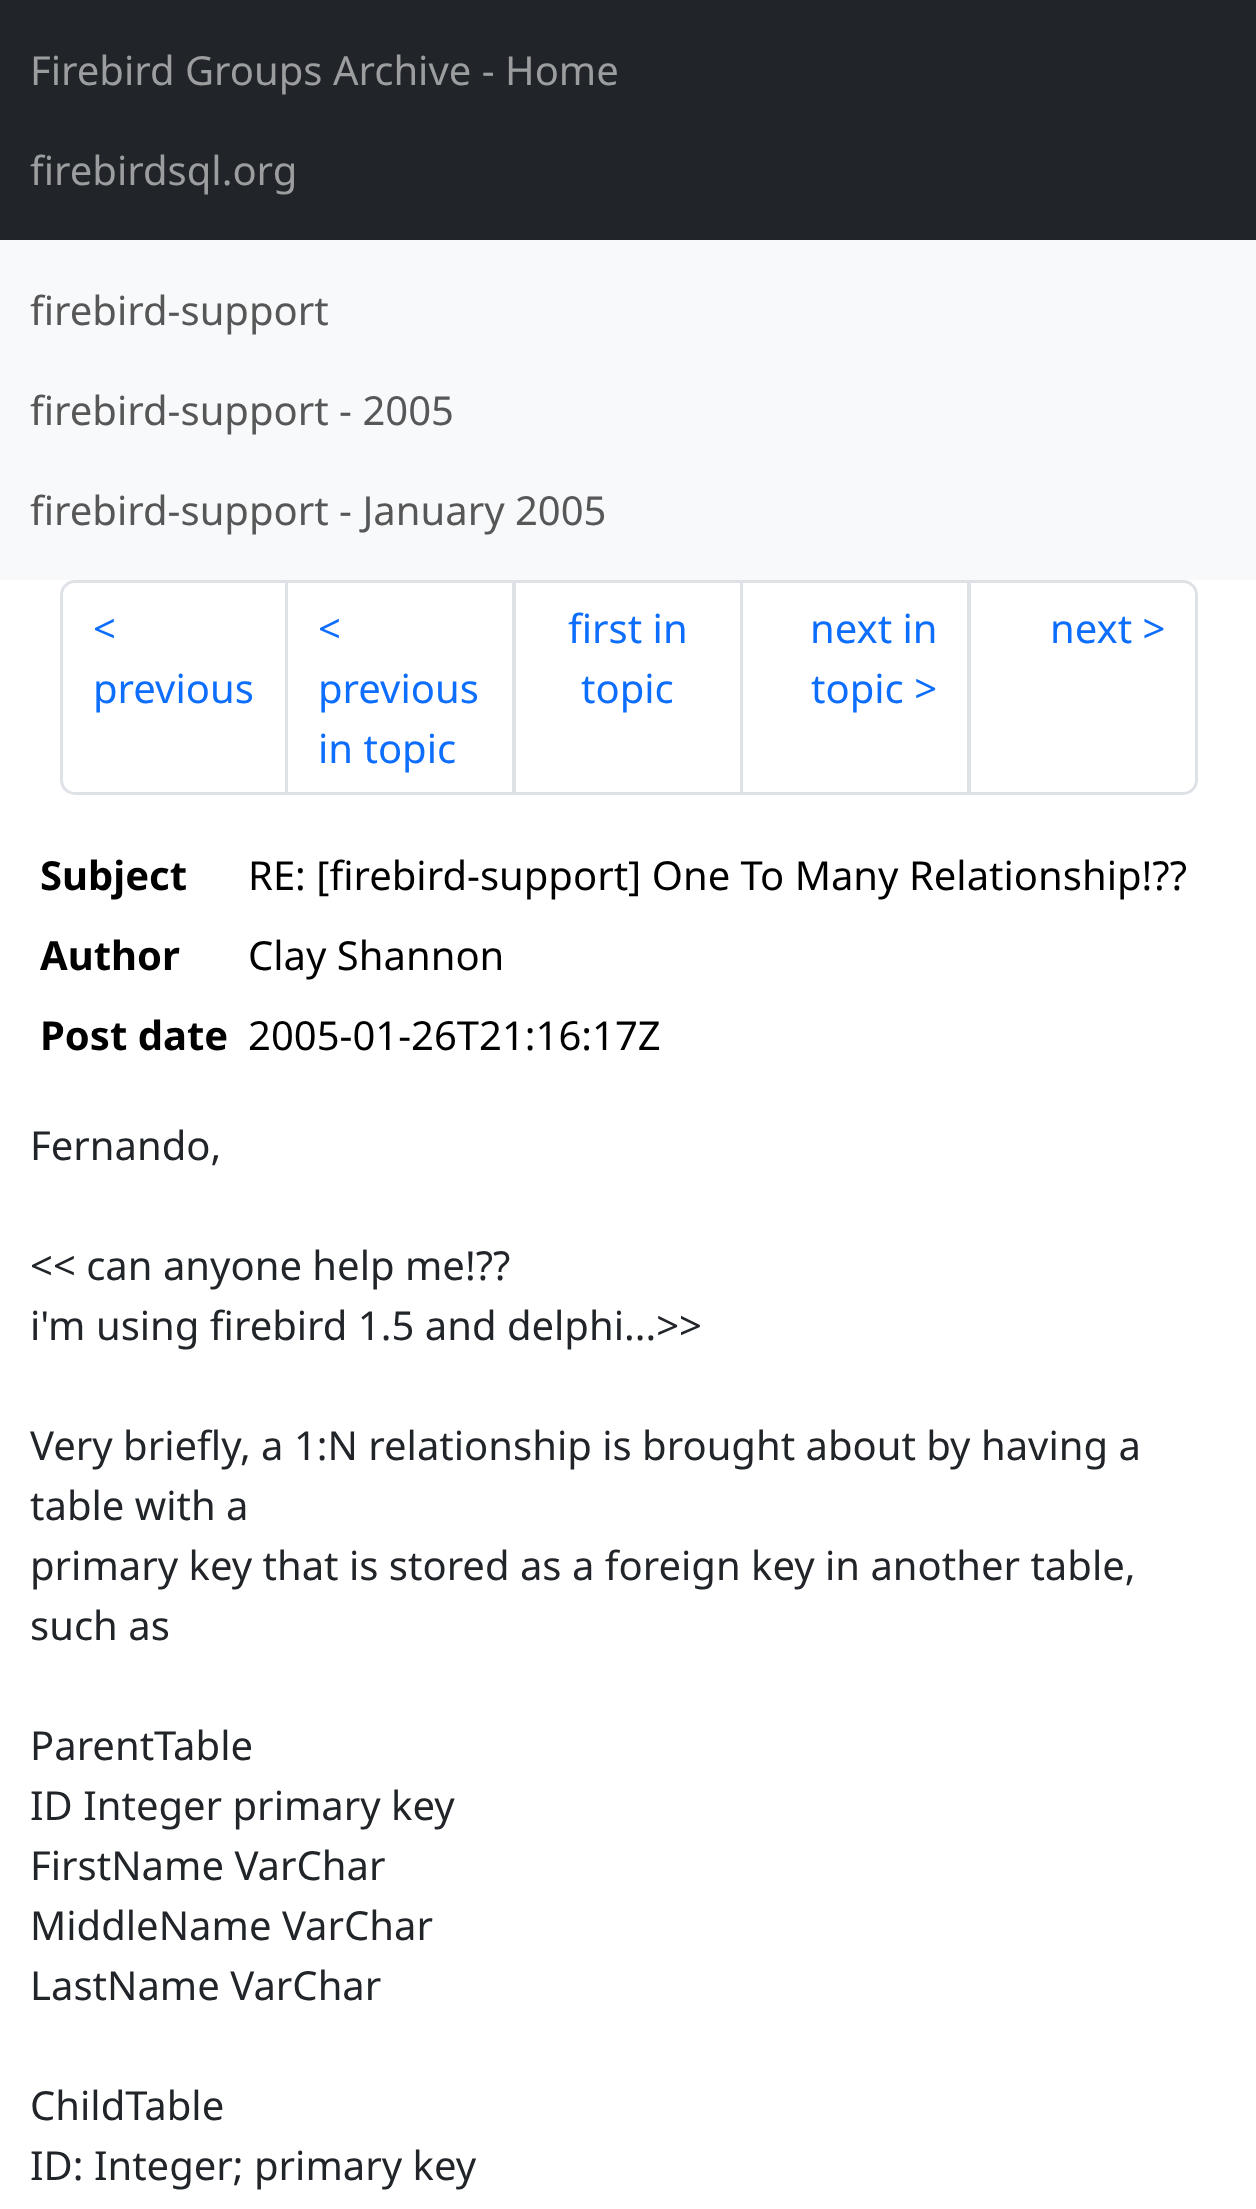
<svg xmlns="http://www.w3.org/2000/svg" width="1256" height="2209">
<style>
.a{font:40px Noto Sans;fill:#9b9d9f}
.b{font:40px Noto Sans;fill:#575758}
.c{font:40px Noto Sans;fill:#0d6efd}
.d{font:bold 40px Noto Sans;fill:#000}
.e{font:40px Noto Sans;fill:#000}
.f{font:40px Noto Sans;fill:#212529}
</style>
<rect width="100%" height="100%" fill="#fff"/>
<path fill="#212529" d="M0 0h1256v240H0z"/>
<path fill="#f8f9fa" d="M0 240h1256v340H0z"/>
<path fill="none" stroke="#dee2e6" stroke-width="3" d="M75 581.5h211.5v212h-211.5c-7.5 0-13.5-6-13.5-13.5v-185c0-7.5 6-13.5 13.5-13.5z"/>
<path fill="none" stroke="#dee2e6" stroke-width="3" d="M286.5 581.5h227v212H286.5z"/>
<path fill="none" stroke="#dee2e6" stroke-width="3" d="M514.5 581.5h227v212H514.5z"/>
<path fill="none" stroke="#dee2e6" stroke-width="3" d="M741.5 581.5h227v212H741.5z"/>
<path fill="#fff" stroke="#dee2e6" stroke-width="3" d="M969.5 581.5h213.5c7.5 0 13.5 6 13.5 13.5v185c0 7.5-6 13.5-13.5 13.5h-213.5z"/>
<text class="a" x="30" y="85">Firebird Groups Archive - Home</text>
<text class="a" x="30" y="185">firebirdsql.org</text>
<text class="b" x="30" y="325">firebird-support</text>
<text class="b" x="30" y="425">firebird-support - 2005</text>
<text class="b" x="30" y="525">firebird-support - January 2005</text>
<text class="c" x="93" y="643">&lt;</text>
<text class="c" x="93" y="703">previous</text>
<text class="c" x="318" y="643">&lt;</text>
<text class="c" x="318" y="703">previous</text>
<text class="c" x="318" y="763">in topic</text>
<text class="c" x="568" y="643">first in</text>
<text class="c" x="581" y="703">topic</text>
<text class="c" x="810" y="643">next in</text>
<text class="c" x="811" y="703">topic &gt;</text>
<text class="c" x="1050" y="643">next &gt;</text>
<text class="d" x="40" y="890">Subject</text>
<text class="e" x="248" y="890">RE: [firebird-support] One To Many Relationship!??</text>
<text class="d" x="40" y="970">Author</text>
<text class="e" x="248" y="970">Clay Shannon</text>
<text class="d" x="40" y="1050">Post date</text>
<text class="e" x="248" y="1050">2005-01-26T21:16:17Z</text>
<text class="f" x="30" y="1160">Fernando,</text>
<text class="f" x="30" y="1280">&lt;&lt; can anyone help me!??</text>
<text class="f" x="30" y="1340">i'm using firebird 1.5 and delphi...&gt;&gt;</text>
<text class="f" x="30" y="1460">Very briefly, a 1:N relationship is brought about by having a</text>
<text class="f" x="30" y="1520">table with a</text>
<text class="f" x="30" y="1580">primary key that is stored as a foreign key in another table,</text>
<text class="f" x="30" y="1640">such as</text>
<text class="f" x="30" y="1760">ParentTable</text>
<text class="f" x="30" y="1820">ID Integer primary key</text>
<text class="f" x="30" y="1880">FirstName VarChar</text>
<text class="f" x="30" y="1940">MiddleName VarChar</text>
<text class="f" x="30" y="2000">LastName VarChar</text>
<text class="f" x="30" y="2120">ChildTable</text>
<text class="f" x="30" y="2180">ID: Integer; primary key</text>
</svg>
